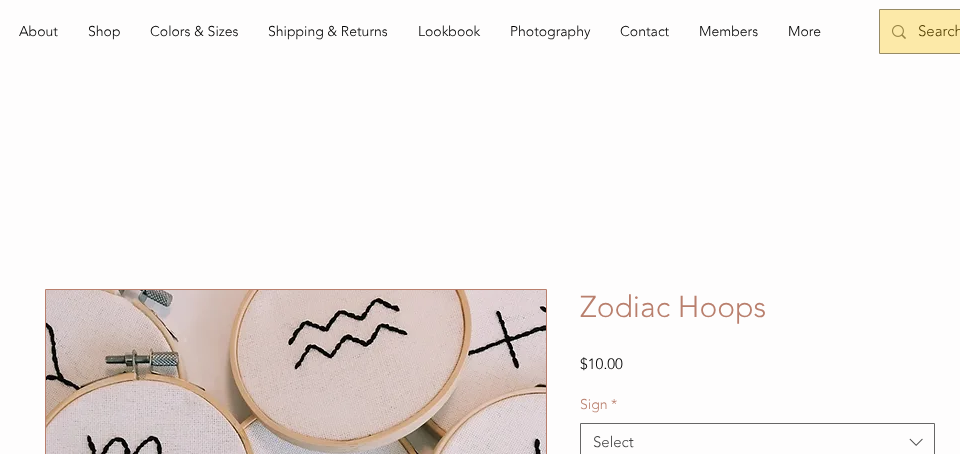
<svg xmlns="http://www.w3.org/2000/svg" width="960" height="454">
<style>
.a{font:300 14px 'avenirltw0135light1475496';fill:#000}
.b{font:300 15px 'avenirltw0135light1475496';fill:#523f00}
.c{font:300 30px 'avenirltw0135light1475496';fill:#b97f6d}
.d{font:300 15px 'avenirltw0135light1475496';fill:#000}
.e{font:300 14px 'avenirltw0135light1475496';fill:#b97f6d}
.f{font:300 15px 'avenirltw0135light1475496';fill:#444}
</style>
<rect width="100%" height="100%" fill="#fefdfd"/>
<path fill="none" stroke="#978b65" d="M879.5 9.5h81v44H879.5z"/>
<path fill="#fce9a8" d="M880 10h80v43H880z"/>
<image href="1.png" x="892" y="25" width="14" height="14"/>
<path fill="none" stroke="#b97f6d" d="M45.5 289.5h501v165H45.5z"/>
<image href="2.png" x="46" y="290" width="500" height="164"/>
<path fill="none" stroke="#666" d="M580.5 423.5h354v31H580.5z"/>
<image href="3.png" x="909" y="438" width="14" height="8"/>
<text class="a" x="19" y="36">About</text>
<text class="a" x="88" y="36">Shop</text>
<text class="a" x="150" y="36">Colors &amp; Sizes</text>
<text class="a" x="268" y="36">Shipping &amp; Returns</text>
<text class="a" x="418" y="36">Lookbook</text>
<text class="a" x="510" y="36">Photography</text>
<text class="a" x="620" y="36">Contact</text>
<text class="a" x="699" y="36">Members</text>
<text class="a" x="788" y="36">More</text>
<text class="b" x="918" y="36">Search</text>
<text class="c" x="580" y="317">Zodiac Hoops</text>
<text class="d" x="580" y="369">$10.00</text>
<text class="e" x="580" y="409">Sign</text>
<text class="e" x="611" y="409">*</text>
<text class="f" x="593" y="447">Select</text>
</svg>
